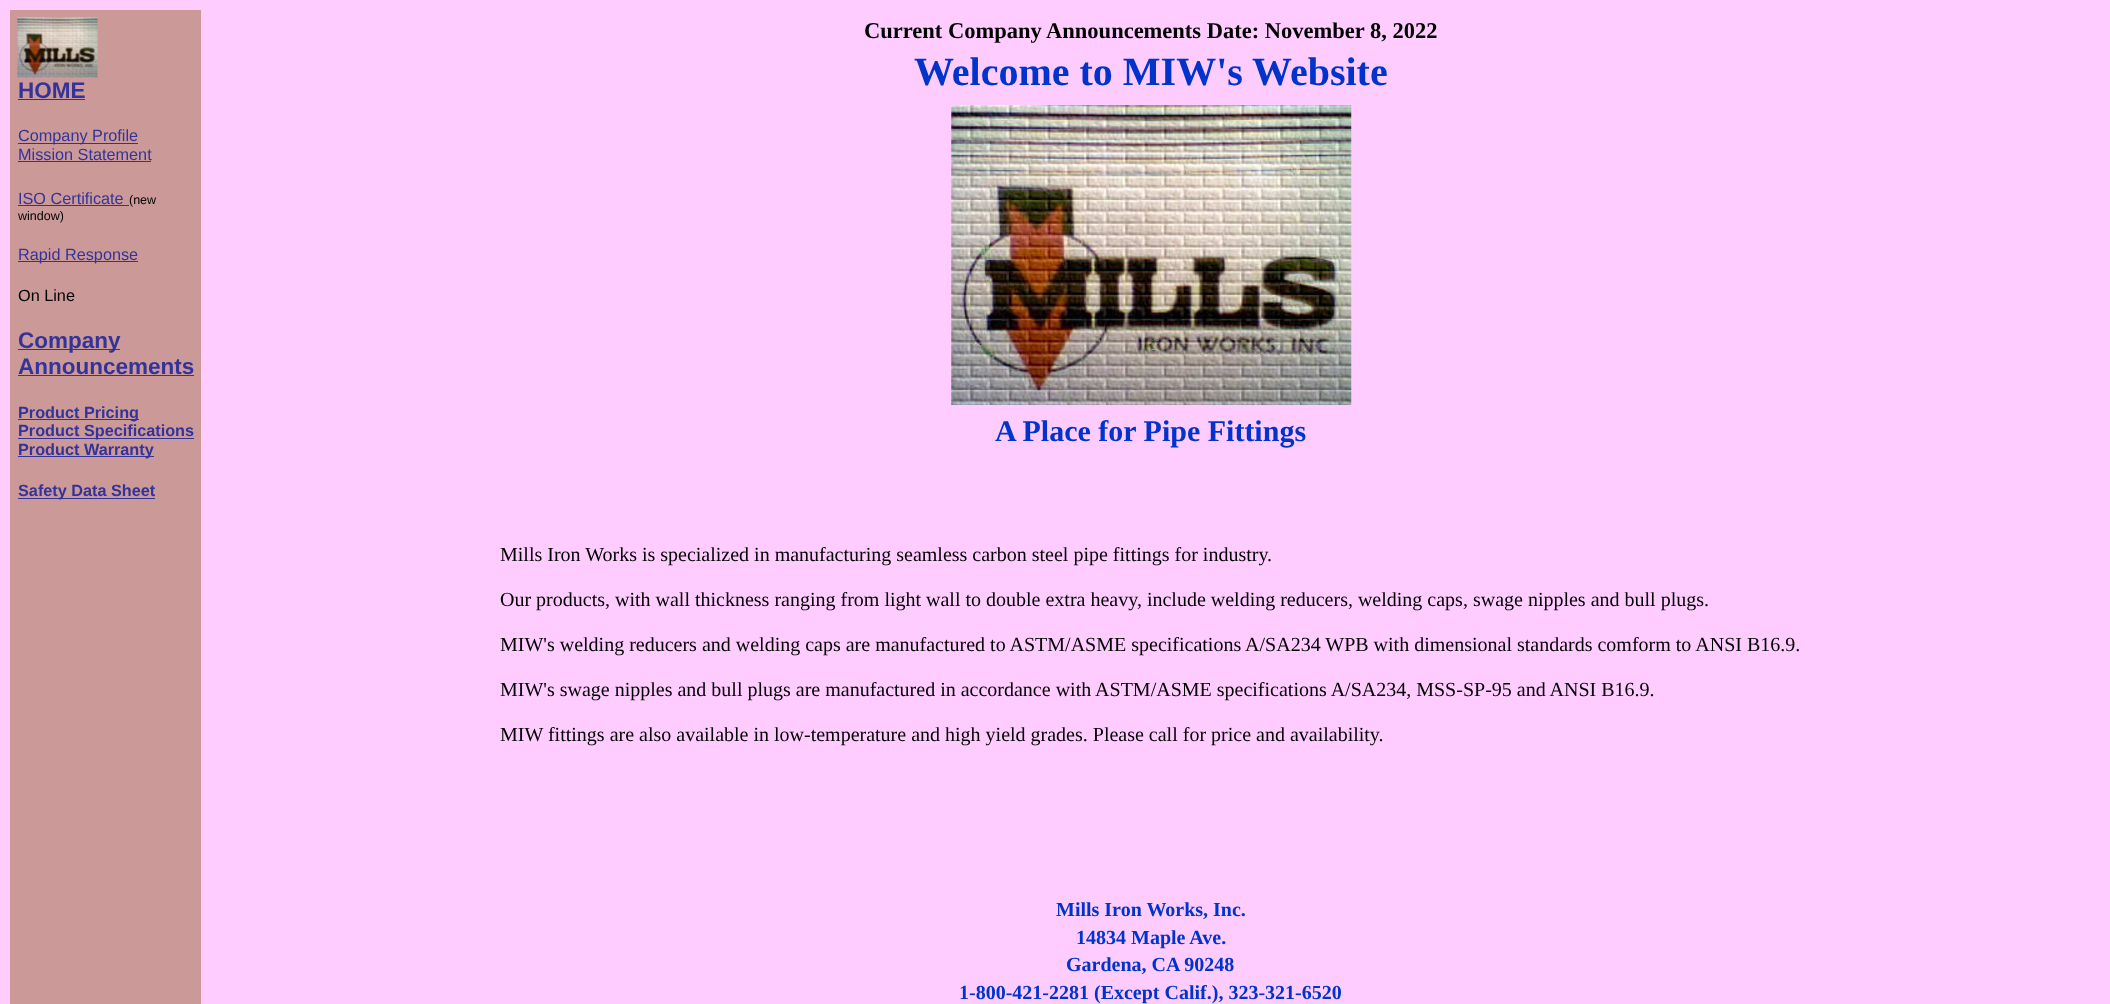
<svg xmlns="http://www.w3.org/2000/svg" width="2110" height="1004">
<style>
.a{font:bold 22.5px Liberation Sans;fill:#339}
.b{font:16.25px Liberation Sans;fill:#339}
.c{font:12.5px Liberation Sans;fill:#000}
.d{font:16.25px Liberation Sans;fill:#000}
.e{font:bold 16.25px Liberation Sans;fill:#339}
.f{font:bold 22.5px Liberation Serif;fill:#000}
.g{font:bold 40px Liberation Serif;fill:#03c}
.h{font:bold 30px Liberation Serif;fill:#03c}
.i{font:20px Liberation Serif;fill:#000}
.j{font:bold 20px Liberation Serif;fill:#03c}
</style>
<rect width="100%" height="100%" fill="#fcf"/>
<path fill="#c99" d="M10 10h191v994H10z"/>
<image href="1.png" x="17" y="17" width="81" height="61"/>
<path fill="#339" d="M18 99h67v1H18z"/>
<path fill="#339" d="M18 143h120v1H18z"/>
<path fill="#339" d="M18 161h133v1H18z"/>
<path fill="#339" d="M18 205h111v1H18z"/>
<path fill="#339" d="M18 261h120v1H18z"/>
<path fill="#339" d="M18 349h102v1H18z"/>
<path fill="#339" d="M18 375h176v1H18z"/>
<path fill="#339" d="M18 419h121v1H18z"/>
<path fill="#339" d="M18 438h176v1H18z"/>
<path fill="#339" d="M18 456h136v1H18z"/>
<path fill="#339" d="M18 498h137v1H18z"/>
<image href="2.png" x="951" y="105" width="401" height="300"/>
<text class="a" x="18" y="98">HOME</text>
<text class="b" x="18" y="141">Company Profile</text>
<text class="b" x="18" y="160">Mission Statement</text>
<text class="b" x="18" y="204">ISO Certificate</text>
<text class="c" x="129" y="204">(new</text>
<text class="c" x="18" y="220">window)</text>
<text class="b" x="18" y="260">Rapid Response</text>
<text class="d" x="18" y="301">On Line</text>
<text class="a" x="18" y="348">Company</text>
<text class="a" x="18" y="374">Announcements</text>
<text class="e" x="18" y="418">Product Pricing</text>
<text class="e" x="18" y="436">Product Specifications</text>
<text class="e" x="18" y="455">Product Warranty</text>
<text class="e" x="18" y="496">Safety Data Sheet</text>
<text class="f" x="864" y="38">Current Company Announcements Date: November 8, 2022</text>
<text class="g" x="914" y="85">Welcome to MIW's Website</text>
<text class="h" x="995" y="441">A Place for Pipe Fittings</text>
<text class="i" x="500" y="561">Mills Iron Works is specialized in manufacturing seamless carbon steel pipe fittings for industry.</text>
<text class="i" x="500" y="606">Our products, with wall thickness ranging from light wall to double extra heavy, include welding reducers, welding caps, swage nipples and bull plugs.</text>
<text class="i" x="500" y="651">MIW's welding reducers and welding caps are manufactured to ASTM/ASME specifications A/SA234 WPB with dimensional standards comform to ANSI B16.9.</text>
<text class="i" x="500" y="696">MIW's swage nipples and bull plugs are manufactured in accordance with ASTM/ASME specifications A/SA234, MSS-SP-95 and ANSI B16.9.</text>
<text class="i" x="500" y="741">MIW fittings are also available in low-temperature and high yield grades. Please call for price and availability.</text>
<text class="j" x="1056" y="916">Mills Iron Works, Inc.</text>
<text class="j" x="1076" y="944">14834 Maple Ave.</text>
<text class="j" x="1066" y="971">Gardena, CA 90248</text>
<text class="j" x="959" y="999">1-800-421-2281 (Except Calif.), 323-321-6520</text>
</svg>
